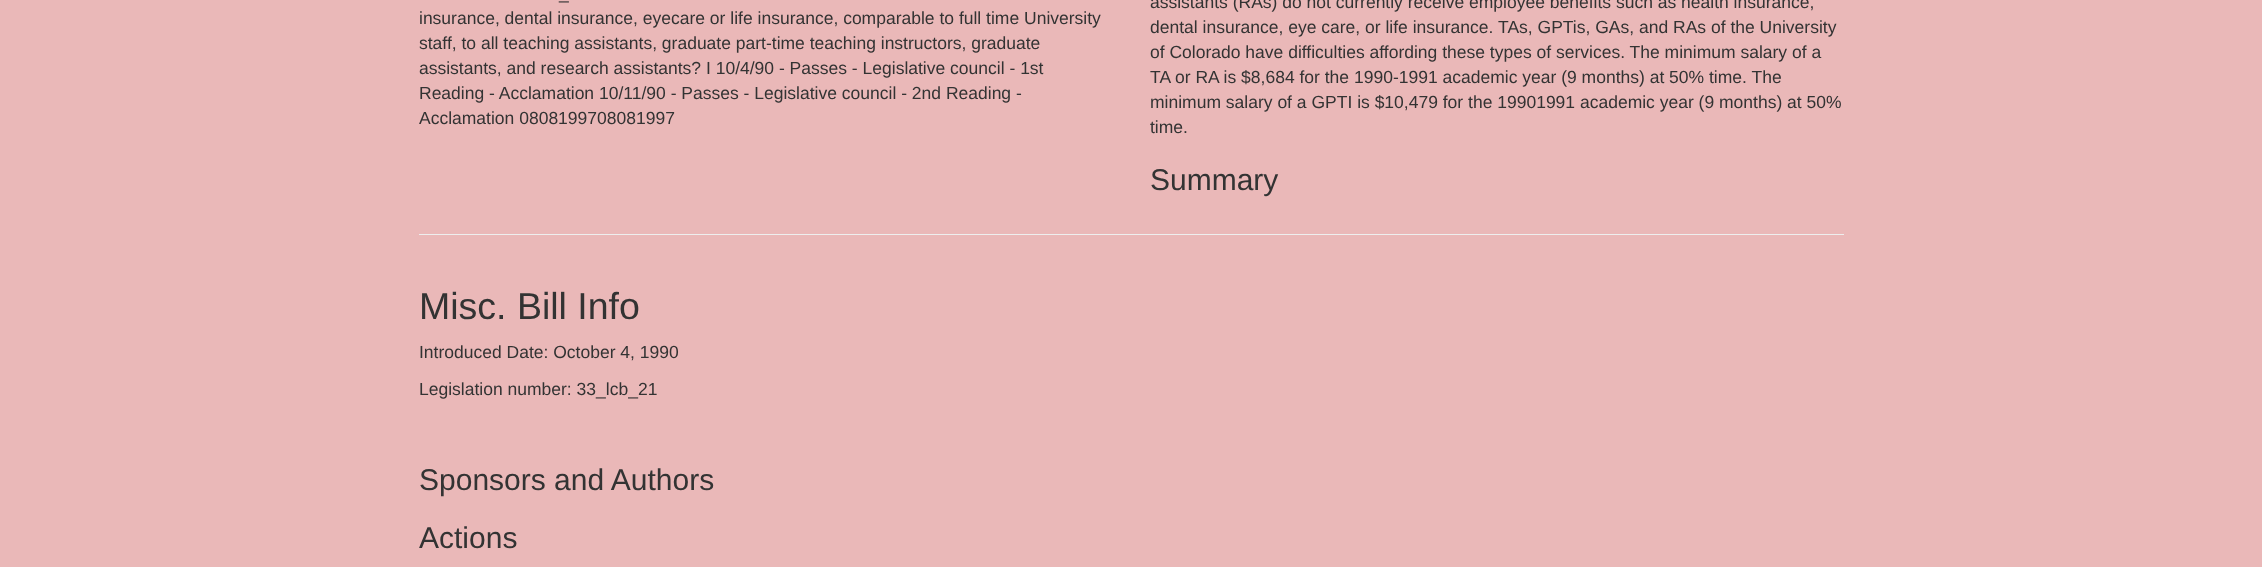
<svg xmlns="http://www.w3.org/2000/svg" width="2262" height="567">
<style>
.a{font:17.5px Liberation Sans;fill:#333}
.b{font:30px Liberation Sans;fill:#333}
.c{font:37.5px Liberation Sans;fill:#333}
</style>
<rect width="100%" height="100%" fill="#eab8b8"/>
<path fill="#eee" d="M419 234h1425v1H419z"/>
<text class="a" x="559" y="-1">_</text>
<text class="a" x="419" y="24">insurance, dental insurance, eyecare or life insurance, comparable to full time University</text>
<text class="a" x="419" y="49">staff, to all teaching assistants, graduate part-time teaching instructors, graduate</text>
<text class="a" x="419" y="74">assistants, and research assistants? I 10/4/90 - Passes - Legislative council - 1st</text>
<text class="a" x="419" y="99">Reading - Acclamation 10/11/90 - Passes - Legislative council - 2nd Reading -</text>
<text class="a" x="419" y="124">Acclamation 0808199708081997</text>
<text class="a" x="1150" y="8">assistants (RAs) do not currently receive employee benefits such as health insurance,</text>
<text class="a" x="1150" y="33">dental insurance, eye care, or life insurance.</text>
<text class="a" x="1498" y="33">TAs, GPTis, GAs, and RAs of the University</text>
<text class="a" x="1150" y="58">of Colorado have difficulties affording these types of services. The minimum salary of a</text>
<text class="a" x="1150" y="83">TA or RA is $8,684 for the 1990-1991 academic year (9 months) at 50% time. The</text>
<text class="a" x="1150" y="108">minimum salary of a GPTI is $10,479 for the 19901991 academic year (9 months) at 50%</text>
<text class="a" x="1150" y="133">time.</text>
<text class="b" x="1150" y="190">Summary</text>
<text class="c" x="419" y="319">Misc. Bill Info</text>
<text class="a" x="419" y="358">Introduced Date: October 4, 1990</text>
<text class="a" x="419" y="395">Legislation number: 33_lcb_21</text>
<text class="b" x="419" y="490">Sponsors and Authors</text>
<text class="b" x="419" y="548">Actions</text>
</svg>
